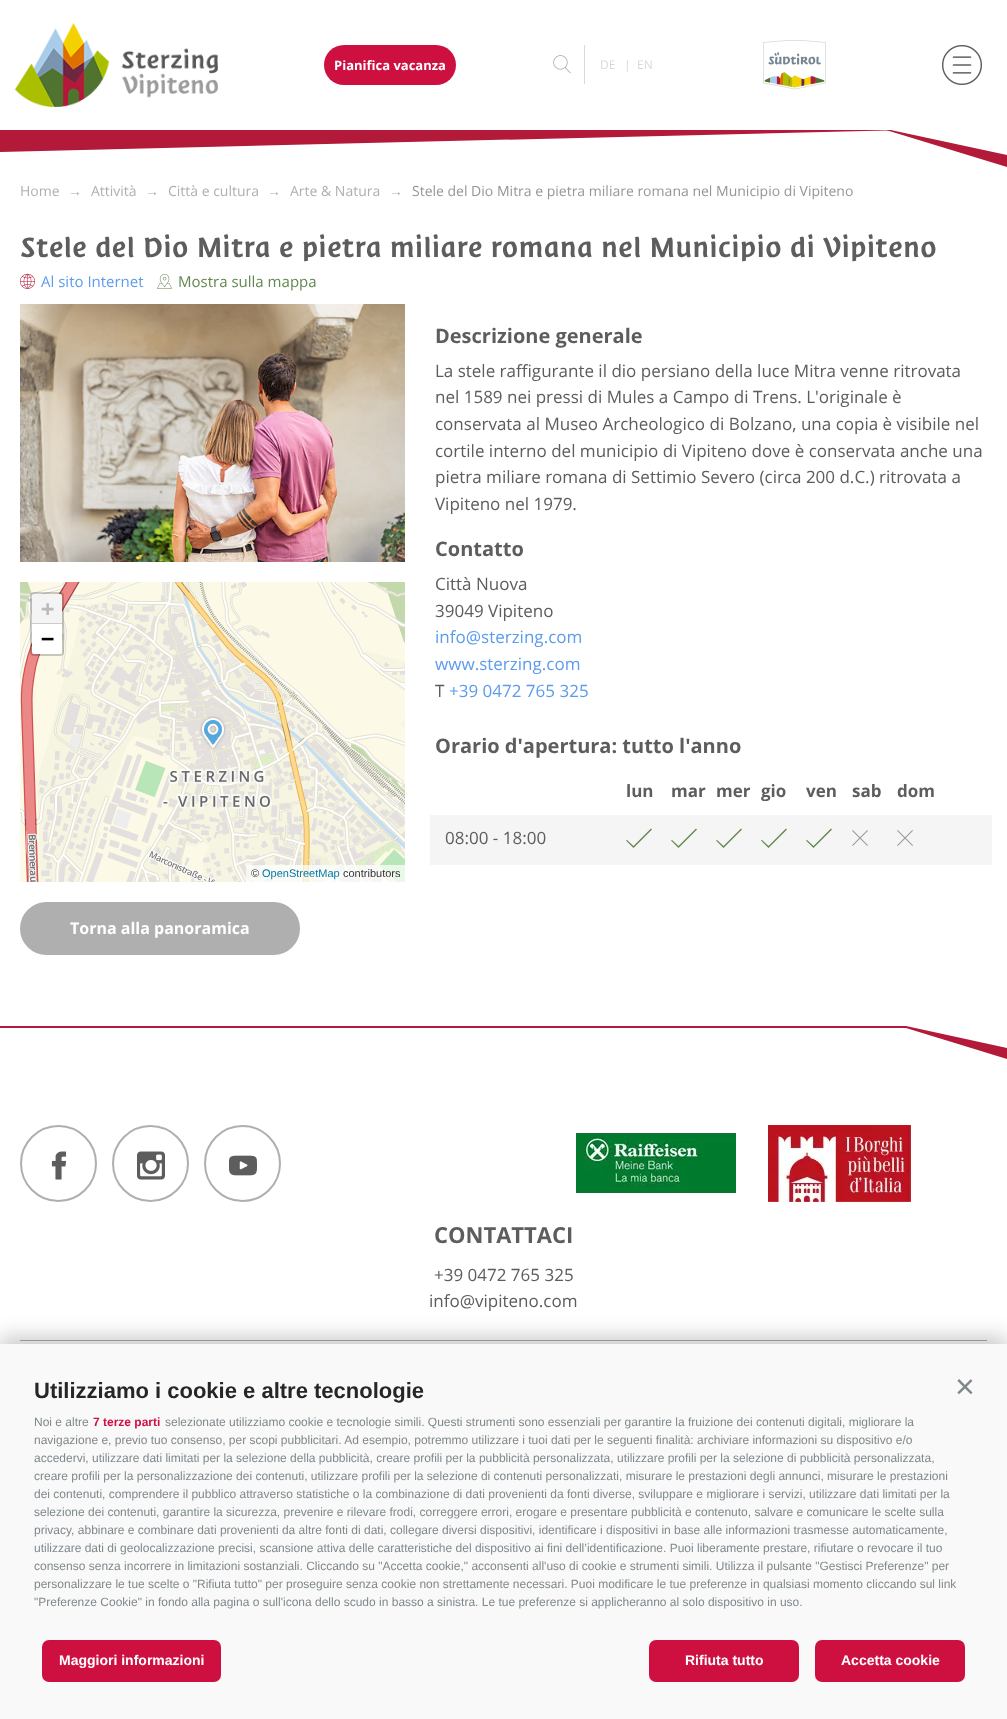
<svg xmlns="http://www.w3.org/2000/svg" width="1007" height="1719">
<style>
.a{font:bold 13px Open Sans;fill:#fff}
.b{font:12px Open Sans;fill:#d9d9d9}
.c{font:14px Open Sans;fill:#afafaf}
.d{font:14px Liberation Sans;fill:#afafaf}
.e{font:14px Open Sans;fill:#969696}
.f{font:32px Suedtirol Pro;fill:#5d5d5d}
.g{font:15px Open Sans;fill:#5d9cec}
.h{font:15px Open Sans;fill:#63884f}
.i{font:bold 22px DejaVu Sans Mono;fill:#bbb}
.j{font:bold 22px DejaVu Sans Mono;fill:#000}
.k{font:11px Liberation Sans;fill:#333}
.l{font:11px Liberation Sans;fill:#0078a8}
.m{font:bold 20px Open Sans;fill:#5d5d5d}
.n{font:17px Open Sans;fill:#5d5d5d}
.o{font:17px Open Sans;fill:#5d9cec}
.p{font:bold 17px Open Sans;fill:#5d5d5d}
.q{font:bold 16px Open Sans;fill:#fff}
.r{font:bold 22px Open Sans;fill:#5d5d5d}
.s{font:bold 22px Liberation Sans;fill:#262628}
.t{font:34px Liberation Sans;fill:#80888c}
.u{font:12px Liberation Sans;fill:#80888c}
.v{font:bold 12px Liberation Sans;fill:#ce1041}
.w{font:bold 14px Liberation Sans;fill:#fff}
</style>
<defs>
<clipPath id="clip1"><path d="M0 130h1007v80H0z"/></clipPath>
<clipPath id="clip2"><path d="M0 1026h1007v80H0z"/></clipPath>
</defs>
<rect width="100%" height="100%" fill="#fff"/>
<image href="1.png" x="15" y="23" width="203" height="84"/>
<rect fill="#ce1041" x="324" y="45" width="132" height="40" rx="20"/>
<path fill="#d9d9d9" d="M584 45h1v39H584z"/>
<image href="2.png" x="553" y="55" width="18" height="19"/>
<image href="3.png" x="763" y="40" width="63" height="50"/>
<image href="4.png" x="942" y="45" width="40" height="40"/>
<g clip-path="url(#clip1)">
<path fill="#b31939" d="M0 108l906-22v44l-906 22z"/>
<path fill="#b31939" d="M886-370l121 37v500l-121-37z"/>
<path fill="#fff" d="M886-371l121 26v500l-121-26z"/>
</g>
<image href="5.png" x="20" y="273" width="15" height="16"/>
<image href="6.png" x="157" y="274" width="15" height="15"/>
<image href="7.png" x="20" y="304" width="385" height="258"/>
<image href="8.png" x="20" y="582" width="53" height="156"/>
<image href="9.png" x="73" y="582" width="256" height="156"/>
<image href="10.png" x="329" y="582" width="76" height="156"/>
<image href="11.png" x="20" y="738" width="53" height="144"/>
<image href="12.png" x="73" y="738" width="256" height="144"/>
<image href="13.png" x="329" y="738" width="76" height="144"/>
<image href="14.png" x="200" y="716" width="26" height="34"/>
<rect fill="none" stroke="#00000033" stroke-width="2" x="31" y="593" width="32" height="62" rx="3"/>
<path fill="#f4f4f4" d="M34 594h26c1 0 2 1 2 2v28h-30v-28c0-1 1-2 2-2z"/>
<path fill="#ccc" d="M32 623h30v1H32z"/>
<path fill="#fff" d="M32 624h30v28c0 1-1 2-2 2h-26c-1 0-2-1-2-2z"/>
<path fill="#ffffffb3" d="M246 865h159v17H246z"/>
<path fill="#f5f5f5" d="M430 815h562v50H430z"/>
<path fill="#63884f" d="M633.5 848l-7.5-7.5l1-.5l6.5 6l17.5-17.5l1 1z"/>
<path fill="#63884f" d="M678.5 848l-7.5-7.5l1-.5l6.5 6l17.5-17.5l1 1z"/>
<path fill="#63884f" d="M723.5 848l-7.5-7.5l1-.5l6.5 6l17.5-17.5l1 1z"/>
<path fill="#63884f" d="M768.5 848l-7.5-7.5l1-.5l6.5 6l17.5-17.5l1 1z"/>
<path fill="#63884f" d="M813.5 848l-7.5-7.5l1-.5l6.5 6l17.5-17.5l1 1z"/>
<image href="15.png" x="852" y="830" width="16" height="16"/>
<image href="15.png" x="897" y="830" width="16" height="16"/>
<rect fill="#afafaf" stroke="#afafaf" stroke-width="2" x="21" y="903" width="278" height="51" rx="25.5"/>
<path fill="#b31939" d="M0 1026h906v2H0z"/>
<g clip-path="url(#clip2)">
<path fill="#b31939" d="M906 1026l101 22v100l-101-22z"/>
<path fill="#fff" d="M906 1028l101 31v500l-101-31z"/>
</g>
<circle fill="none" stroke="#afafaf" stroke-width="2" cx="58.5" cy="1163.5" r="37.5"/>
<image href="16.png" x="51" y="1151" width="16" height="29"/>
<circle fill="none" stroke="#afafaf" stroke-width="2" cx="150.5" cy="1163.5" r="37.5"/>
<image href="17.png" x="137" y="1151" width="28" height="29"/>
<circle fill="none" stroke="#afafaf" stroke-width="2" cx="242.5" cy="1163.5" r="37.5"/>
<image href="18.png" x="229" y="1155" width="28" height="21"/>
<image href="19.png" x="576" y="1133" width="160" height="60"/>
<image href="20.png" x="768" y="1125" width="143" height="77"/>
<path fill="#afafaf" d="M20 1340h967v1H20z"/>
<path fill="#00000033" filter="blur(10px)" d="M0 1336h1007v375H0z"/>
<path fill="#f9f9f9" d="M0 1344h1007v375H0z"/>
<rect fill="#ce1041" x="42" y="1640" width="179" height="42" rx="7"/>
<rect fill="#ce1041" x="649" y="1640" width="150" height="42" rx="7"/>
<rect fill="#ce1041" x="815" y="1640" width="150" height="42" rx="7"/>
<text class="a" x="334" y="70">Pianifica vacanza</text>
<text class="b" x="600" y="69">DE</text>
<text class="b" x="624" y="69">|</text>
<text class="b" x="637" y="69">EN</text>
<text class="c" x="20" y="196">Home</text>
<text class="d" x="68" y="196">→</text>
<text class="c" x="91" y="196">Attività</text>
<text class="d" x="145" y="196">→</text>
<text class="c" x="168" y="196">Città e cultura</text>
<text class="d" x="267" y="196">→</text>
<text class="c" x="290" y="196">Arte &amp; Natura</text>
<text class="d" x="389" y="196">→</text>
<text class="e" x="412" y="196">Stele del Dio Mitra e pietra miliare romana nel Municipio di Vipiteno</text>
<text class="f" x="20" y="257">Stele del Dio Mitra e pietra miliare romana nel Municipio di Vipiteno</text>
<text class="g" x="41" y="287">Al sito Internet</text>
<text class="h" x="178" y="287">Mostra sulla mappa</text>
<text class="i" x="41" y="616">+</text>
<text class="j" x="41" y="646">−</text>
<text class="k" x="251" y="877">©</text>
<text class="l" x="262" y="877">OpenStreetMap</text>
<text class="k" x="343" y="877">contributors</text>
<text class="m" x="435" y="343">Descrizione generale</text>
<text class="n" x="435" y="377">La stele raffigurante il dio persiano della luce Mitra venne ritrovata</text>
<text class="n" x="435" y="403">nel 1589 nei pressi di Mules a Campo di Trens. L'originale è</text>
<text class="n" x="435" y="430">conservata al Museo Archeologico di Bolzano, una copia è visibile nel</text>
<text class="n" x="435" y="457">cortile interno del municipio di Vipiteno dove è conservata anche una</text>
<text class="n" x="435" y="483">pietra miliare romana di Settimio Severo (circa 200 d.C.) ritrovata a</text>
<text class="n" x="435" y="510">Vipiteno nel 1979.</text>
<text class="m" x="435" y="556">Contatto</text>
<text class="n" x="435" y="590">Città Nuova</text>
<text class="n" x="435" y="617">39049 Vipiteno</text>
<text class="o" x="435" y="643">info@sterzing.com</text>
<text class="o" x="435" y="670">www.sterzing.com</text>
<text class="n" x="435" y="697">T</text>
<text class="o" x="449" y="697">+39 0472 765 325</text>
<text class="m" x="435" y="753">Orario d'apertura: tutto l'anno</text>
<text class="p" x="626" y="797">lun</text>
<text class="p" x="671" y="797">mar</text>
<text class="p" x="716" y="797">mer</text>
<text class="p" x="761" y="797">gio</text>
<text class="p" x="806" y="797">ven</text>
<text class="p" x="852" y="797">sab</text>
<text class="p" x="897" y="797">dom</text>
<text class="n" x="445" y="844">08:00 - 18:00</text>
<text class="q" x="70" y="934">Torna alla panoramica</text>
<text class="r" x="434" y="1243">CONTATTACI</text>
<text class="n" x="434" y="1281">+39 0472 765 325</text>
<text class="n" x="429" y="1307">info@vipiteno.com</text>
<text class="s" x="34" y="1398">Utilizziamo i cookie e altre tecnologie</text>
<text class="t" x="955" y="1398">×</text>
<text class="u" x="34" y="1426">Noi e altre</text>
<text class="v" x="93" y="1426">7 terze parti</text>
<text class="u" x="165" y="1426">selezionate utilizziamo cookie e tecnologie simili. Questi strumenti sono essenziali per garantire la fruizione dei contenuti digitali, migliorare la</text>
<text class="u" x="34" y="1444">navigazione e, previo tuo consenso, per scopi pubblicitari. Ad esempio, potremmo utilizzare i tuoi dati per le seguenti finalità: archiviare informazioni su dispositivo e/o</text>
<text class="u" x="34" y="1462">accedervi, utilizzare dati limitati per la selezione della pubblicità, creare profili per la pubblicità personalizzata, utilizzare profili per la selezione di pubblicità personalizzata,</text>
<text class="u" x="34" y="1480">creare profili per la personalizzazione dei contenuti, utilizzare profili per la selezione di contenuti personalizzati, misurare le prestazioni degli annunci, misurare le prestazioni</text>
<text class="u" x="34" y="1498">dei contenuti, comprendere il pubblico attraverso statistiche o la combinazione di dati provenienti da fonti diverse, sviluppare e migliorare i servizi, utilizzare dati limitati per la</text>
<text class="u" x="34" y="1516">selezione dei contenuti, garantire la sicurezza, prevenire e rilevare frodi, correggere errori, erogare e presentare pubblicità e contenuto, salvare e comunicare le scelte sulla</text>
<text class="u" x="34" y="1534">privacy, abbinare e combinare dati provenienti da altre fonti di dati, collegare diversi dispositivi, identificare i dispositivi in base alle informazioni trasmesse automaticamente,</text>
<text class="u" x="34" y="1552">utilizzare dati di geolocalizzazione precisi, scansione attiva delle caratteristiche del dispositivo ai fini dell’identificazione. Puoi liberamente prestare, rifiutare o revocare il tuo</text>
<text class="u" x="34" y="1570">consenso senza incorrere in limitazioni sostanziali. Cliccando su "Accetta cookie," acconsenti all'uso di cookie e strumenti simili. Utilizza il pulsante "Gestisci Preferenze" per</text>
<text class="u" x="34" y="1588">personalizzare le tue scelte o "Rifiuta tutto" per proseguire senza cookie non strettamente necessari. Puoi modificare le tue preferenze in qualsiasi momento cliccando sul link</text>
<text class="u" x="34" y="1606">"Preferenze Cookie" in fondo alla pagina o sull'icona dello scudo in basso a sinistra. Le tue preferenze si applicheranno al solo dispositivo in uso.</text>
<text class="w" x="59" y="1665">Maggiori informazioni</text>
<text class="w" x="685" y="1665">Rifiuta tutto</text>
<text class="w" x="841" y="1665">Accetta cookie</text>
</svg>
